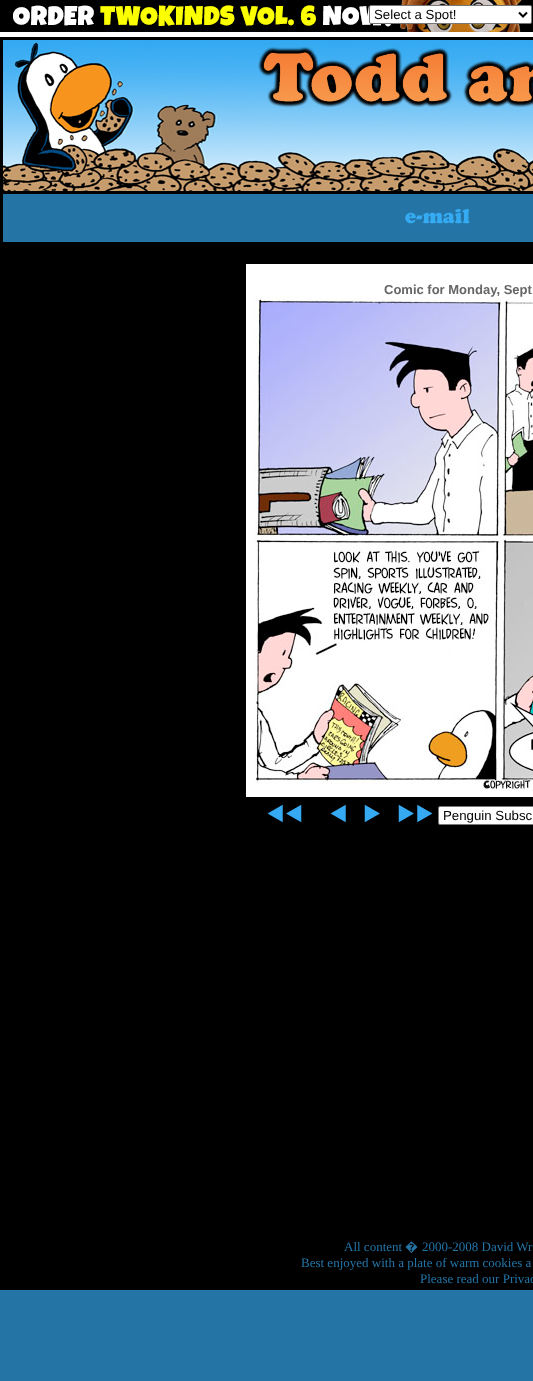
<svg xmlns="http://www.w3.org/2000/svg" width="533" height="1381">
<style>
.a{font:13.25px Liberation Sans;fill:#000}
.b{font:bold 13px Liberation Sans;fill:#666}
.c{font:13px Liberation Serif;fill:#2474a6}
.d{font:13px Noto Sans;fill:#2474a6}
</style>
<rect width="100%" height="100%" fill="#2474a6"/>
<path fill="#000" d="M0 0h533v32H0z"/>
<path fill="#fff" d="M0 32h533v5H0z"/>
<image href="1.png" x="13" y="0" width="509" height="32"/>
<rect fill="#fff" stroke="#767676" x="369.5" y="5.5" width="162" height="18" rx="1.5"/>
<path fill="none" stroke="#000" stroke-width="2" d="M519 12.5l4 4l4-4"/>
<path fill="#000" d="M0 37h533v1253H0z"/>
<image href="2.png" x="3" y="40" width="530" height="151"/>
<path fill="#2474a6" d="M3 194h530v48H3z"/>
<image href="3.png" x="405" y="209" width="65" height="18"/>
<path fill="#fff" d="M246 264h287v533H246z"/>
<image href="4.png" x="253" y="297" width="280" height="494"/>
<image href="5.png" x="267" y="804" width="35" height="19"/>
<image href="6.png" x="330" y="804" width="16" height="19"/>
<image href="7.png" x="364" y="804" width="16" height="19"/>
<image href="8.png" x="398" y="804" width="35" height="19"/>
<rect fill="#fff" stroke="#767676" x="438.5" y="806.5" width="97" height="18" rx="1.5"/>
<text class="a" x="374" y="19">Select a Spot!</text>
<text class="b" x="384" y="294">Comic for Monday, Sept</text>
<text class="a" x="443" y="820">Penguin Subsc</text>
<text class="c" x="344" y="1251">All content</text>
<text class="d" x="405" y="1251">�</text>
<text class="c" x="422" y="1251">2000-2008 David Wr</text>
<text class="c" x="301" y="1267">Best enjoyed with a plate of warm cookies a</text>
<text class="c" x="420" y="1283">Please read our Privac</text>
</svg>
